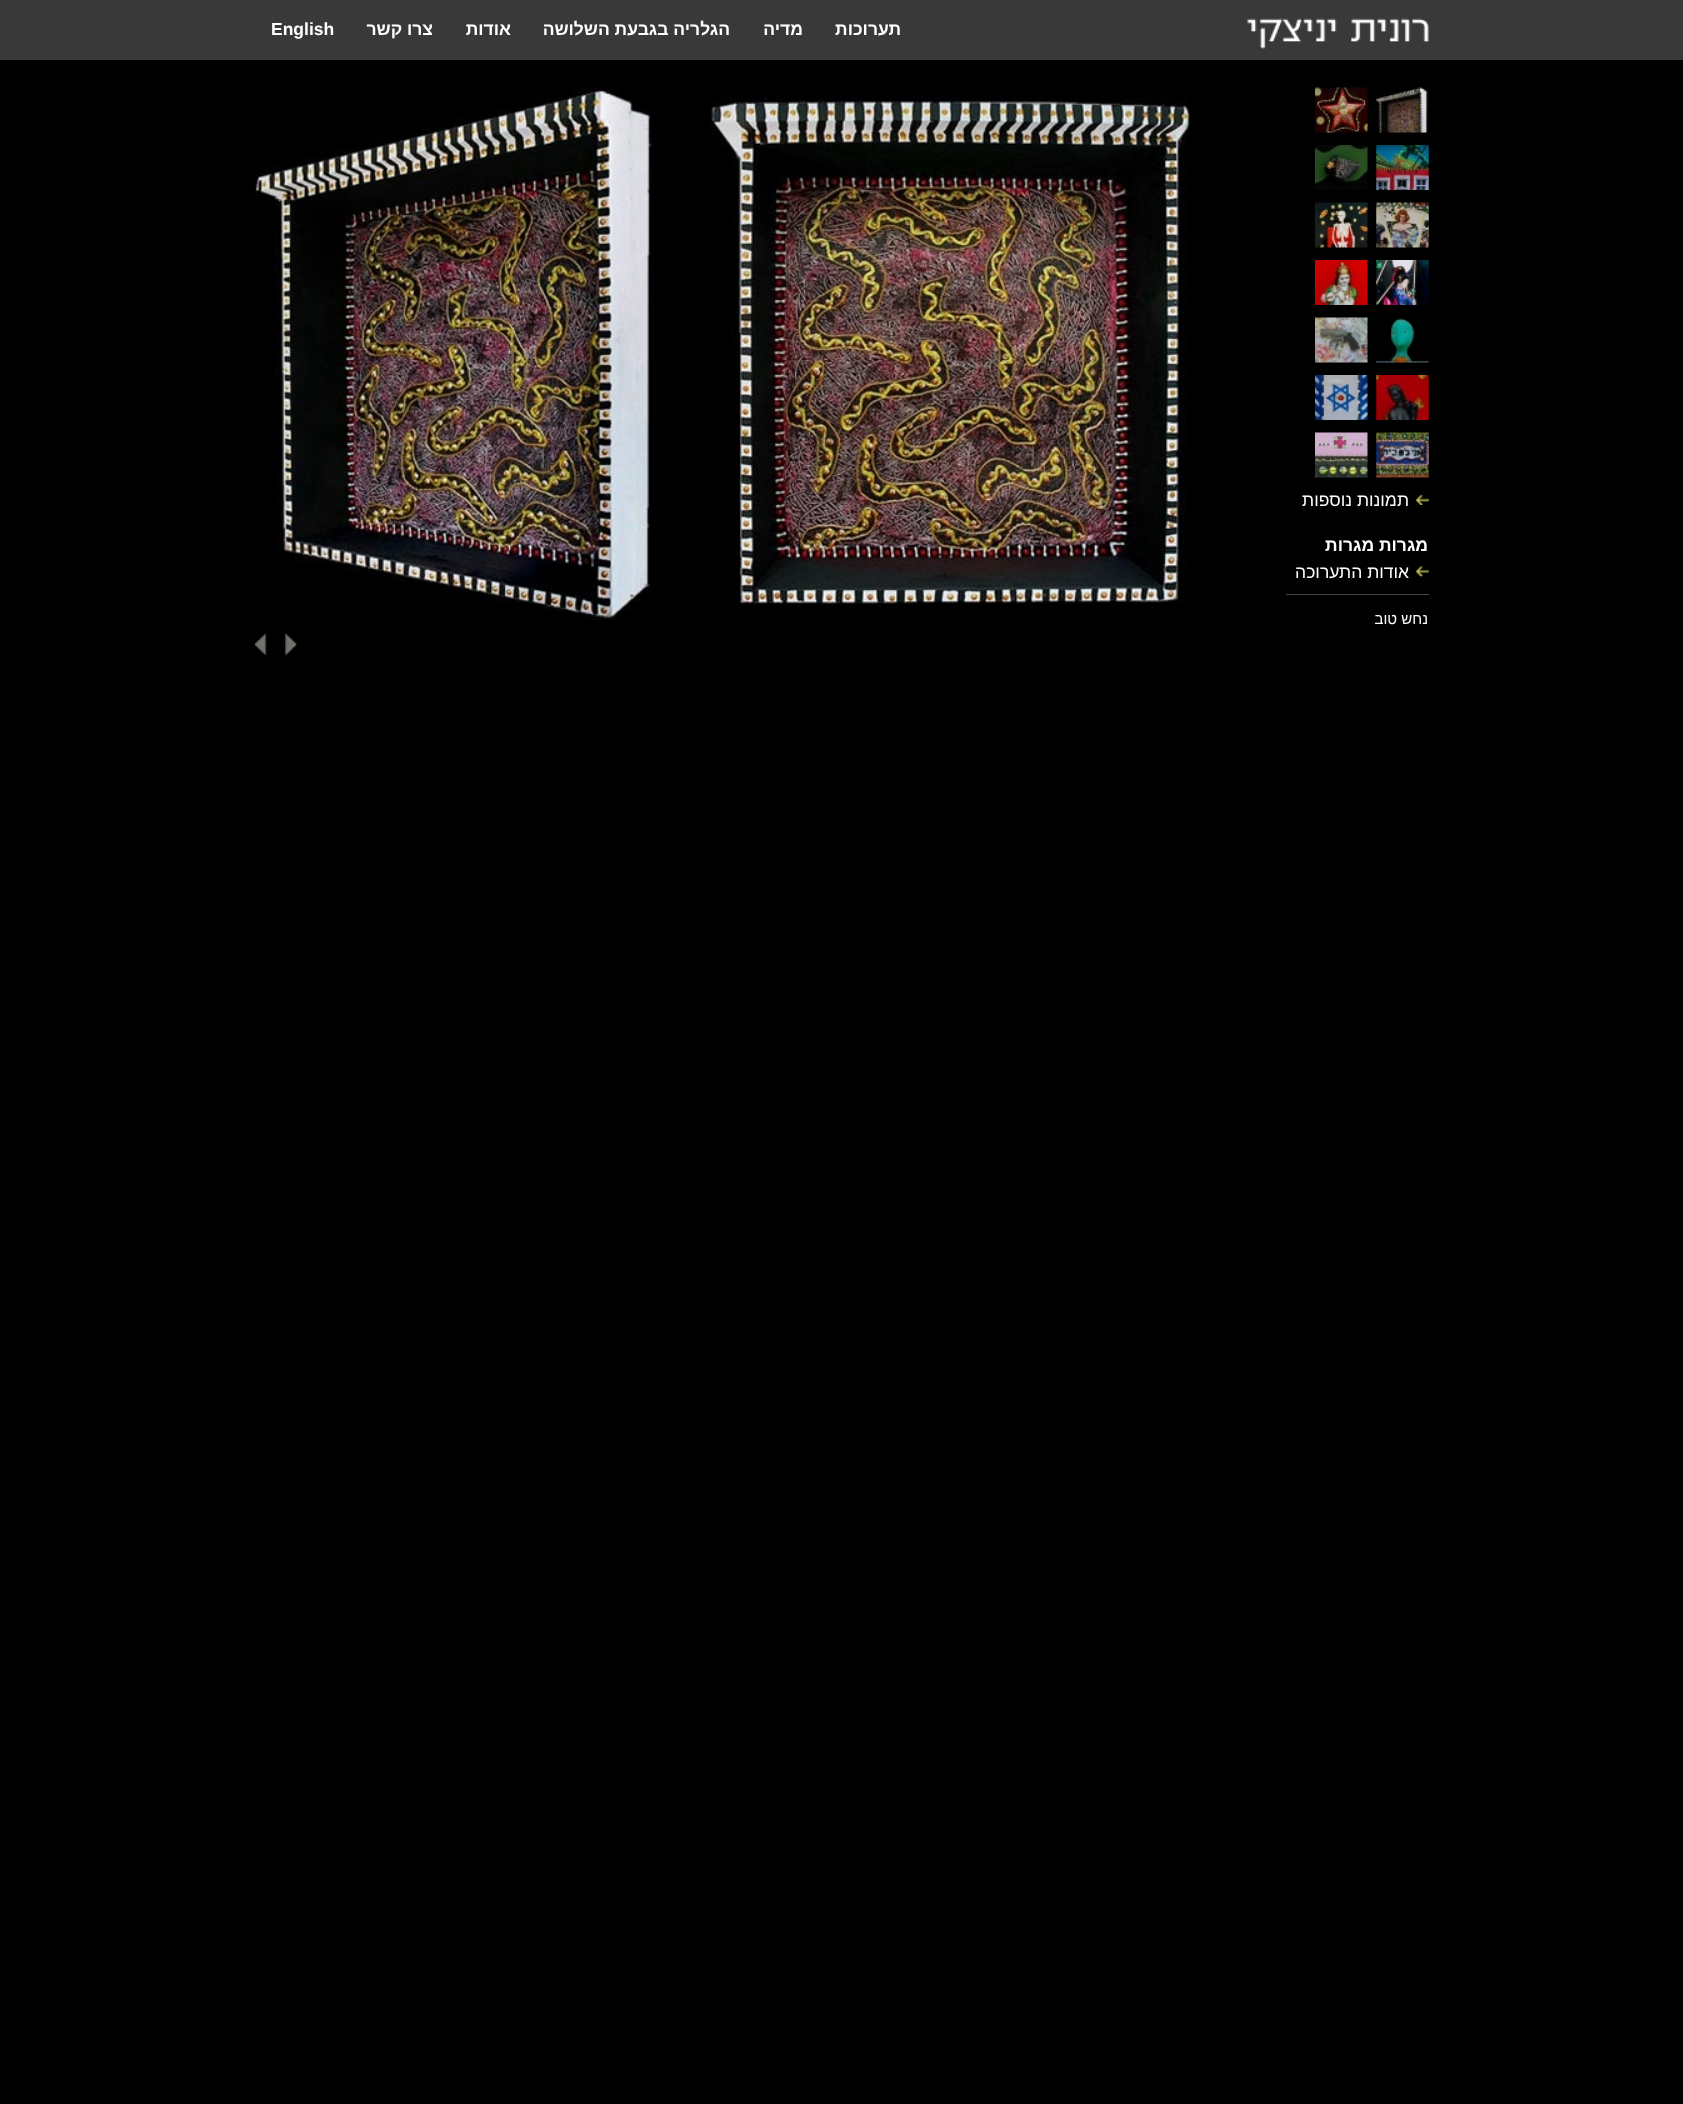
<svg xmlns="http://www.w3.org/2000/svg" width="1683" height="2104">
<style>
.a{font:bold 17.5px Liberation Sans;direction:rtl;fill:#fff}
.b{font:bold 17.5px Liberation Sans;fill:#fff}
.c{font:17.5px Liberation Sans;direction:rtl;fill:#fff}
.d{font:15px Liberation Sans;direction:rtl;fill:#fff}
</style>
<rect width="100%" height="100%" fill="#000"/>
<path fill="#393939" d="M0 0h1683v60H0z"/>
<image href="1.png" x="1247" y="18" width="182" height="31"/>
<image href="2.png" x="1376" y="87" width="52" height="46"/>
<image href="3.png" x="1315" y="87" width="53" height="46"/>
<image href="4.png" x="1376" y="145" width="53" height="45"/>
<image href="5.png" x="1315" y="145" width="53" height="45"/>
<image href="6.png" x="1376" y="202" width="53" height="46"/>
<image href="7.png" x="1315" y="202" width="53" height="46"/>
<image href="8.png" x="1376" y="260" width="53" height="45"/>
<image href="9.png" x="1315" y="260" width="53" height="45"/>
<image href="10.png" x="1376" y="318" width="53" height="45"/>
<image href="11.png" x="1315" y="317" width="53" height="46"/>
<image href="12.png" x="1376" y="375" width="53" height="45"/>
<image href="13.png" x="1315" y="375" width="53" height="45"/>
<image href="14.png" x="1376" y="432" width="53" height="46"/>
<image href="15.png" x="1315" y="432" width="53" height="46"/>
<image href="16.png" x="1416" y="494" width="13" height="11"/>
<image href="17.png" x="1416" y="566" width="13" height="11"/>
<path fill="#464646" d="M1286 594h143v1H1286z"/>
<image href="18.png" x="255" y="87" width="939" height="533"/>
<image href="19.png" x="285" y="633" width="12" height="22"/>
<image href="20.png" x="255" y="633" width="12" height="22"/>
<text class="a" x="901" y="35">תערוכות</text>
<text class="a" x="803" y="35">מדיה</text>
<text class="a" x="730" y="35">הגלריה בגבעת השלושה</text>
<text class="a" x="511" y="35">אודות</text>
<text class="a" x="433" y="35">צרו קשר</text>
<text class="b" x="271" y="35">English</text>
<text class="c" x="1409" y="506">תמונות נוספות</text>
<text class="a" x="1428" y="551">מגרות מגרות</text>
<text class="c" x="1409" y="578">אודות התערוכה</text>
<text class="d" x="1428" y="624">נחש טוב</text>
</svg>
